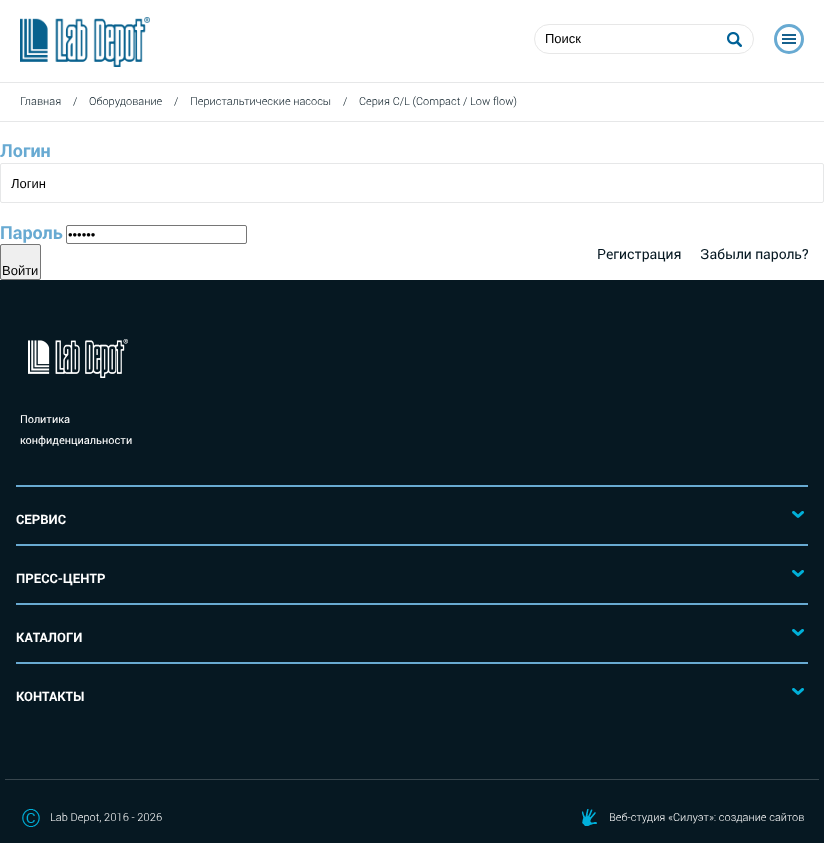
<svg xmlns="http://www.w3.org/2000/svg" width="824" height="843">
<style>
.a{font:13px Liberation Sans;fill:#000}
.b{font:300 11px Roboto;fill:#061822}
.c{font:bold 18px Roboto;fill:#68aad2}
.d{font:14px Roboto;fill:#061822}
.e{font:11px Roboto;fill:#fff}
.f{font:bold 13px Roboto;fill:#fff}
.g{font:300 11px Roboto;fill:#fff}
</style>
<rect width="100%" height="100%" fill="#fff"/>
<image href="1.png" x="20" y="17" width="130" height="50"/>
<rect fill="none" stroke="#e7e7e7" x="534.5" y="24.5" width="219" height="29" rx="14.5"/>
<image href="2.png" x="727" y="32" width="15" height="15"/>
<circle fill="none" stroke="#68aad2" stroke-width="3" cx="789" cy="39" r="13.5"/>
<path fill="#16618e" d="M782 34h14v2H782z"/>
<path fill="#16618e" d="M782 38h14v2H782z"/>
<path fill="#16618e" d="M782 42h14v2H782z"/>
<path fill="#e6e7e8" d="M0 82h824v1H0z"/>
<path fill="#e6e7e8" d="M0 121h824v1H0z"/>
<rect fill="none" stroke="#e6e7e8" x="0.5" y="163.5" width="823" height="39" rx="1.5"/>
<rect fill="none" stroke="#767676" x="66.5" y="225.5" width="180" height="18" rx="1.5"/>
<rect fill="#efefef" stroke="#767676" x="0.5" y="244.5" width="40" height="35" rx="1.5"/>
<path fill="#061822" d="M0 280h824v563H0z"/>
<path fill="#38464e" d="M5 779h814v1H5z"/>
<image href="3.png" x="28" y="339" width="100" height="39"/>
<path fill="#68aad2" d="M16 485h792v2H16z"/>
<image href="4.png" x="792" y="511" width="12" height="7"/>
<path fill="#68aad2" d="M16 544h792v2H16z"/>
<image href="4.png" x="792" y="570" width="12" height="7"/>
<path fill="#68aad2" d="M16 603h792v2H16z"/>
<image href="4.png" x="792" y="629" width="12" height="7"/>
<path fill="#68aad2" d="M16 662h792v2H16z"/>
<image href="4.png" x="792" y="688" width="12" height="7"/>
<image href="5.png" x="22" y="809" width="18" height="18"/>
<image href="6.png" x="582" y="809" width="15" height="17"/>
<text class="a" x="545" y="43">Поиск</text>
<text class="b" x="20" y="105">Главная</text>
<text class="b" x="73" y="105">/</text>
<text class="b" x="89" y="105">Оборудование</text>
<text class="b" x="174" y="105">/</text>
<text class="b" x="190" y="105">Перистальтические насосы</text>
<text class="b" x="343" y="105">/</text>
<text class="b" x="359" y="105">Серия C/L (Compact / Low flow)</text>
<text class="c" x="0" y="157">Логин</text>
<text class="a" x="11" y="188">Логин</text>
<text class="c" x="0" y="239">Пароль</text>
<text class="a" x="68" y="239">••••••</text>
<text class="d" x="597" y="259">Регистрация</text>
<text class="d" x="700" y="259">Забыли пароль?</text>
<text class="a" x="2" y="275">Войти</text>
<text class="e" x="20" y="423">Политика</text>
<text class="e" x="20" y="444">конфиденциальности</text>
<text class="f" x="16" y="524">СЕРВИС</text>
<text class="f" x="16" y="583">ПРЕСС-ЦЕНТР</text>
<text class="f" x="16" y="642">КАТАЛОГИ</text>
<text class="f" x="16" y="701">КОНТАКТЫ</text>
<text class="g" x="50" y="821">Lab Depot, 2016 - 2026</text>
<text class="g" x="609" y="821">Веб-студия «Силуэт»: создание сайтов</text>
</svg>
